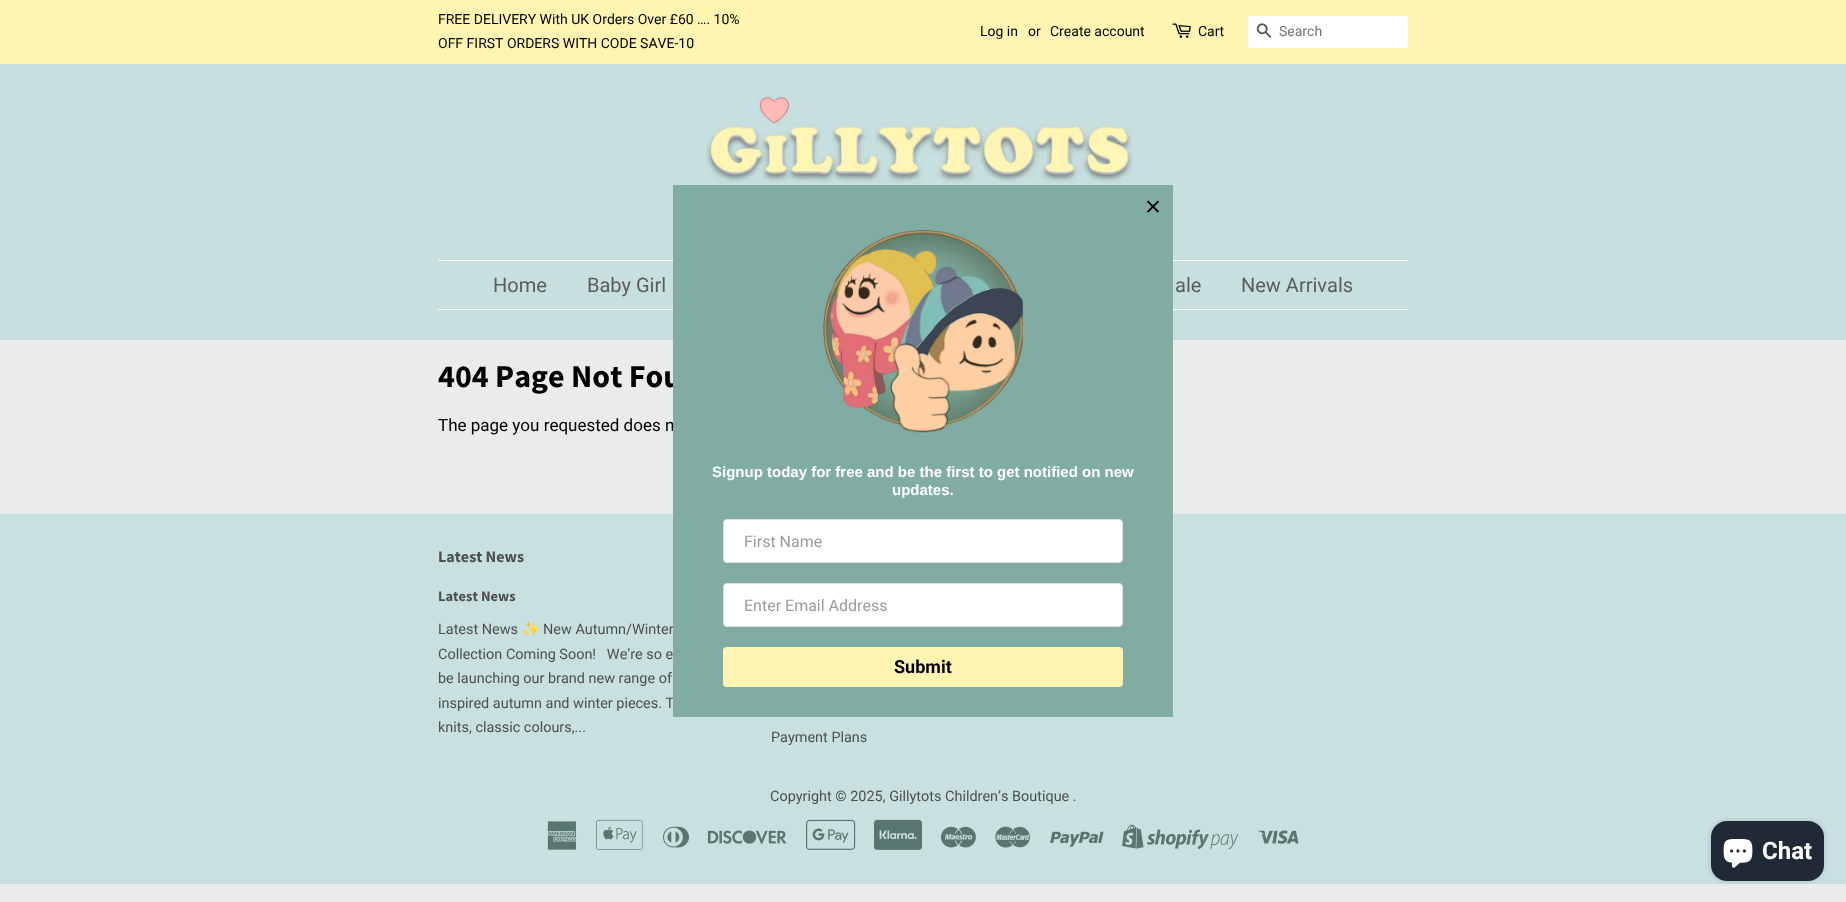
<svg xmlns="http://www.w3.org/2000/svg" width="1846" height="902">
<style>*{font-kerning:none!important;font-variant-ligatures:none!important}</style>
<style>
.a{font:14px Roboto;fill:#000}
.b{font:14px Roboto;fill:#757575}
.c{font:20px Roboto;fill:#5c5c5c}
.d{font:bold 32px Source Sans Pro;fill:#000}
.e{font:17px Roboto;fill:#000}
.f{font:bold 16px Source Sans Pro;fill:#4f4f4f}
.g{font:bold 14.45px Source Sans Pro;fill:#4f4f4f}
.h{font:14.45px Roboto;fill:#4f4f4f}
.i{font:14.45px Noto Color Emoji;fill:#4f4f4f}
.j{font:bold 18px Roboto;fill:#000}
.k{font:bold 15px Liberation Sans;fill:#fff}
.l{font:16px Roboto;fill:#9b9b9b}
.m{font:bold 24px Roboto;fill:#fff}
</style>
<rect width="100%" height="100%" fill="#ebebeb"/>
<path fill="#fff5b3" d="M0 0h1846v64H0z"/>
<image href="1.png" x="1172" y="23" width="19" height="15"/>
<rect fill="#fff" x="1248" y="16" width="160" height="32" rx="2"/>
<image href="2.png" x="1256" y="23" width="16" height="15"/>
<path fill="#c7dfdf" d="M0 64h1846v276H0z"/>
<image href="3.png" x="706" y="94" width="427" height="91"/>
<path fill="#fff" d="M438 260h970v1H438z"/>
<path fill="#fff" d="M438 309h970v1H438z"/>
<path fill="#c8e0e0" d="M0 514h1846v370H0z"/>
<image href="6.png" x="547" y="821" width="30" height="29"/>
<image href="7.png" x="596" y="819" width="47" height="31"/>
<image href="8.png" x="663" y="826" width="26" height="22"/>
<image href="9.png" x="708" y="830" width="79" height="14"/>
<image href="10.png" x="806" y="819" width="50" height="31"/>
<image href="11.png" x="874" y="819" width="48" height="31"/>
<image href="12.png" x="941" y="826" width="35" height="22"/>
<image href="13.png" x="995" y="826" width="35" height="22"/>
<image href="14.png" x="1050" y="831" width="54" height="16"/>
<image href="15.png" x="1122" y="824" width="117" height="26"/>
<image href="16.png" x="1258" y="830" width="41" height="14"/>
<rect fill="#00000026" filter="blur(2.5px)" x="1711" y="821" width="113" height="60" rx="16"/>
<rect fill="#202a36" x="1711" y="821" width="113" height="60" rx="16"/>
<image href="17.png" x="1723" y="839" width="30" height="29"/>
<text class="a" x="438" y="24">FREE DELIVERY With UK Orders Over £60 …. 10%</text>
<text class="a" x="438" y="48">OFF FIRST ORDERS WITH CODE SAVE-10</text>
<text class="a" x="980" y="36">Log in</text>
<text class="a" x="1028" y="36">or</text>
<text class="a" x="1050" y="36">Create account</text>
<text class="a" x="1198" y="36">Cart</text>
<text class="b" x="1279" y="36">Search</text>
<text class="c" x="493" y="292">Home</text>
<text class="c" x="587" y="292">Baby Girl</text>
<text class="c" x="1175" y="292">ale</text>
<text class="c" x="1241" y="292">New Arrivals</text>
<text class="d" x="438" y="387">404 Page Not Fou</text>
<text class="e" x="438" y="431">The page you requested does n</text>
<text class="f" x="438" y="562">Latest News</text>
<text class="g" x="438" y="601">Latest News</text>
<text class="h" x="438" y="634">Latest News</text>
<text class="i" x="522" y="634">✨</text>
<text class="h" x="543" y="634">New Autumn/Winter</text>
<text class="h" xml:space="preserve" x="438" y="659">Collection Coming Soon!   We’re so e</text>
<text class="h" x="438" y="683">be launching our brand new range of</text>
<text class="h" x="438" y="708">inspired autumn and winter pieces. T</text>
<path fill="#81aca3" d="M673 185h500v532H673z"/>
<image href="4.png" x="1147" y="200" width="12" height="13"/>
<rect fill="#fff5b3" x="723" y="647" width="400" height="40" rx="4"/>
<text class="j" x="894" y="673">Submit</text>
<text class="k" x="892" y="495">updates.</text>
<text class="k" x="712" y="477">Signup today for free and be the first to get notified on new</text>
<rect fill="#fff" stroke="#e1e1e1" x="723.5" y="583.5" width="399" height="43" rx="3.5"/>
<text class="l" x="744" y="611">Enter Email Address</text>
<rect fill="#fff" stroke="#e1e1e1" x="723.5" y="519.5" width="399" height="43" rx="3.5"/>
<text class="l" x="744" y="547">First Name</text>
<image href="5.png" x="823" y="230" width="200" height="203"/>
<text class="h" x="438" y="732">knits, classic colours,...</text>
<text class="h" x="771" y="742">Payment Plans</text>
<text class="h" x="770" y="801">Copyright © 2025, Gillytots Children’s Boutique .</text>
<text class="m" x="1762" y="859">Chat</text>
</svg>
